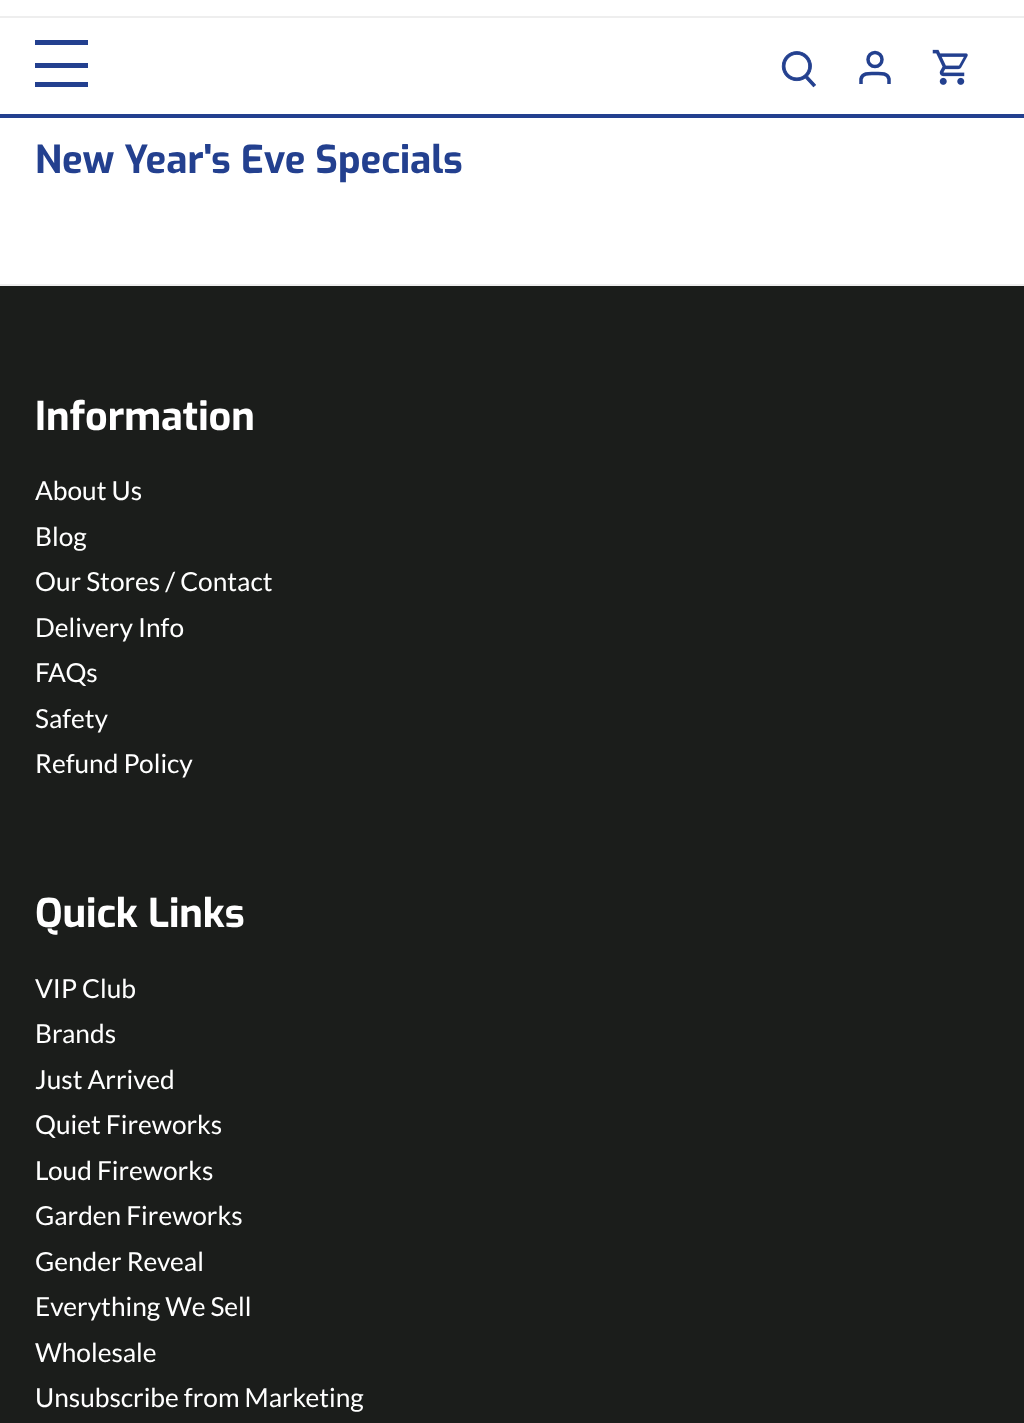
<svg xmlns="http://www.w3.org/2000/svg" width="1024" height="1423">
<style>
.a{font:bold 38.5px Exo;fill:#23408f}
.b{font:bold 39.5px Exo;fill:#fff}
.c{font:26.25px Lato;fill:#fff}
</style>
<rect width="100%" height="100%" fill="#1b1d1b"/>
<path fill="#fff" d="M0 0h1024v284H0z"/>
<path fill="#eee" d="M0 16h1024v2H0z"/>
<path fill="#23408f" d="M35 40h53v5H35z"/>
<path fill="#23408f" d="M35 63h53v5H35z"/>
<path fill="#23408f" d="M35 82h53v5H35z"/>
<image href="1.png" x="781" y="51" width="35" height="37"/>
<circle fill="none" stroke="#23408f" stroke-width="3.5" cx="875" cy="59.5" r="7"/>
<path fill="none" stroke="#23408f" stroke-width="3.5" d="M889 84v-5c-1.5-6.5-9-5.5-14-5.5c-5 0-12.5-1-14 5.5v5"/>
<image href="2.png" x="932" y="49" width="36" height="36"/>
<path fill="#23408f" d="M0 114h1024v4H0z"/>
<path fill="#eee" d="M0 284h1024v2H0z"/>
<text class="a" x="35" y="173">New Year's Eve Specials</text>
<text class="b" x="35" y="430">Information</text>
<text class="c" x="35" y="500">About Us</text>
<text class="c" x="35" y="546">Blog</text>
<text class="c" x="35" y="591">Our Stores / Contact</text>
<text class="c" x="35" y="637">Delivery Info</text>
<text class="c" x="35" y="682">FAQs</text>
<text class="c" x="35" y="728">Safety</text>
<text class="c" x="35" y="773">Refund Policy</text>
<text class="b" x="35" y="927">Quick Links</text>
<text class="c" x="35" y="998">VIP Club</text>
<text class="c" x="35" y="1043">Brands</text>
<text class="c" x="35" y="1089">Just Arrived</text>
<text class="c" x="35" y="1134">Quiet Fireworks</text>
<text class="c" x="35" y="1180">Loud Fireworks</text>
<text class="c" x="35" y="1225">Garden Fireworks</text>
<text class="c" x="35" y="1271">Gender Reveal</text>
<text class="c" x="35" y="1316">Everything We Sell</text>
<text class="c" x="35" y="1362">Wholesale</text>
<text class="c" x="35" y="1407">Unsubscribe from Marketing</text>
</svg>
